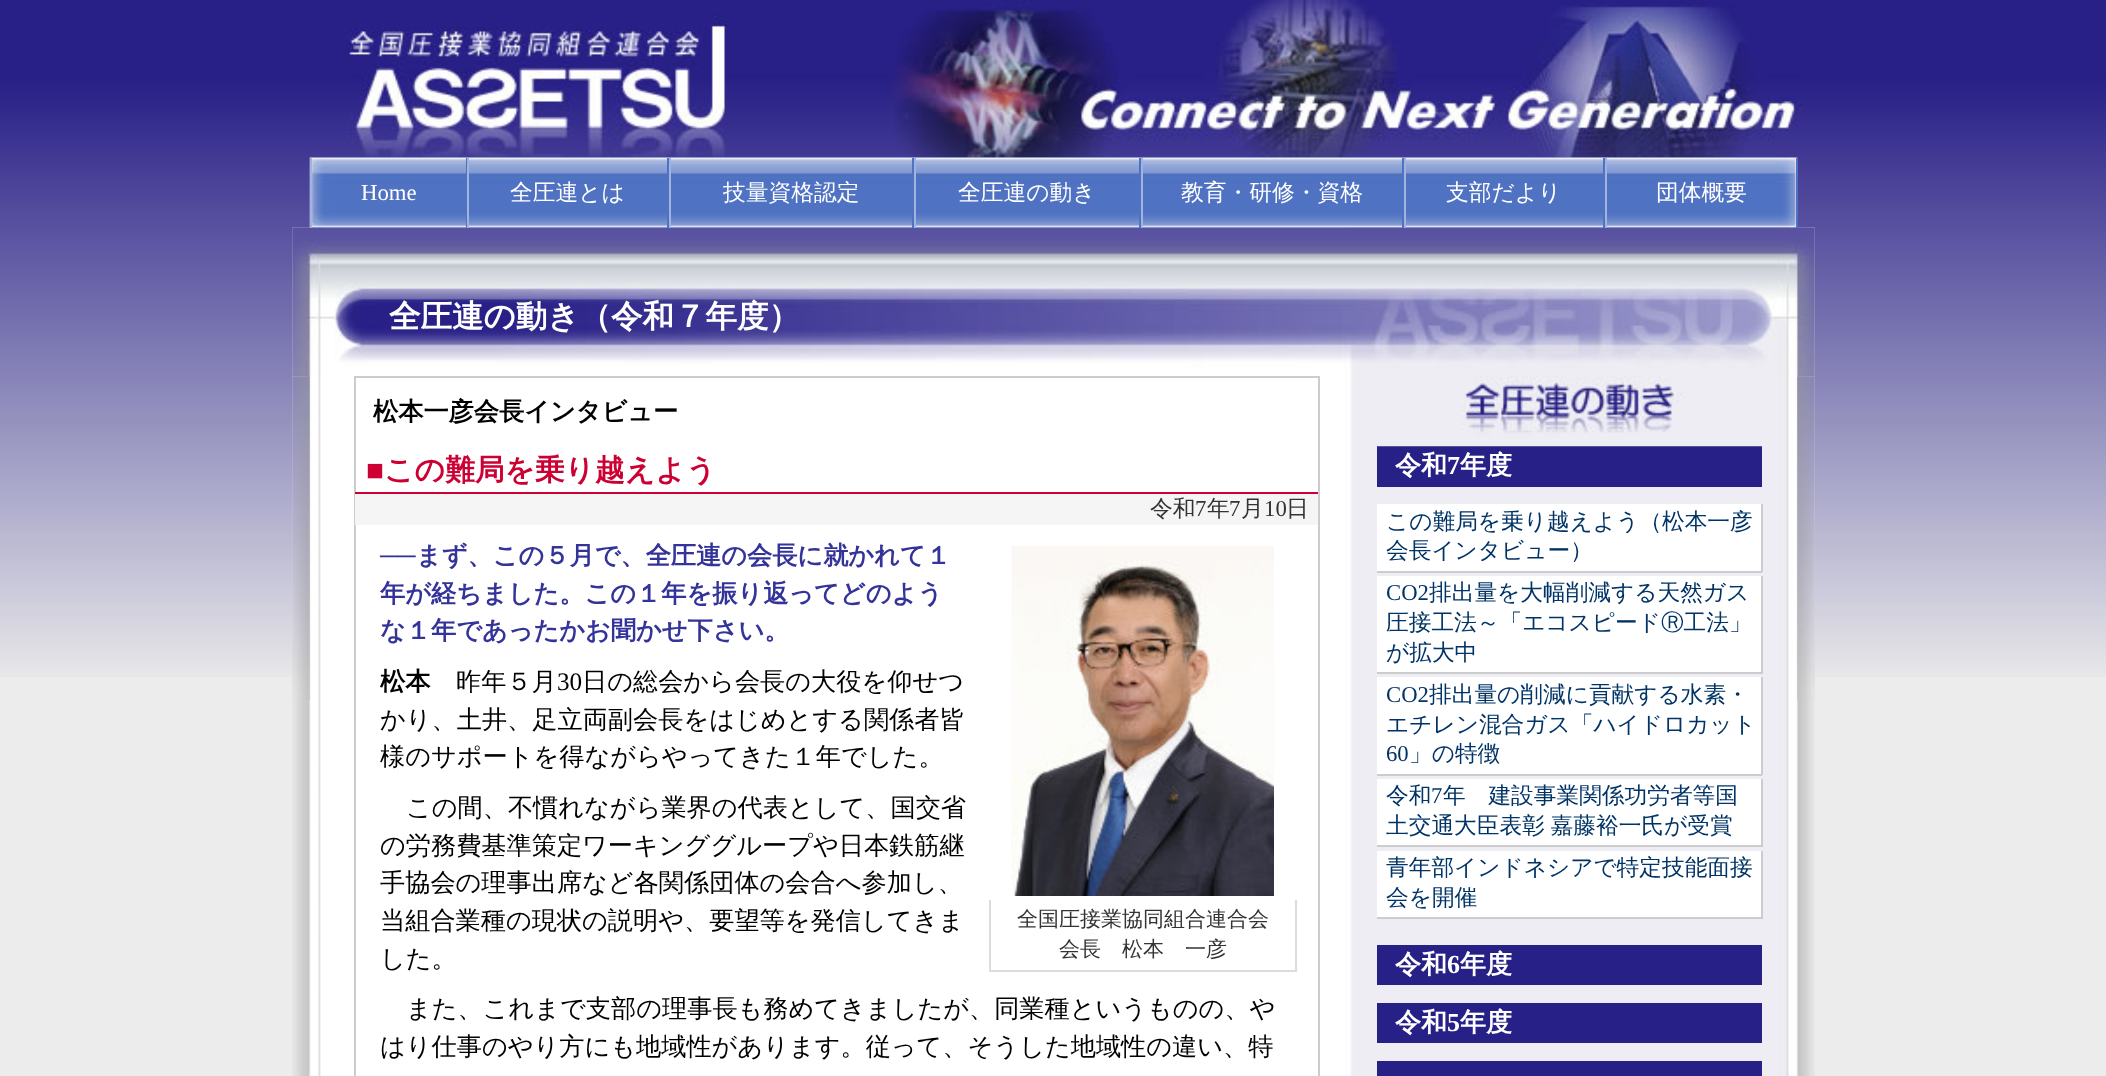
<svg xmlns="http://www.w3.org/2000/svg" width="2106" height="1076">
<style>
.a{font:22.75px Liberation Serif;fill:#fff}
.b{font:500 22.75px WenQuanYi Zen Hei;fill:#fff}
.c{font:bold 31.5px WenQuanYi Zen Hei;fill:#fff}
.d{font:bold 25.2px WenQuanYi Zen Hei;fill:#000}
.e{font:bold 29.75px Liberation Serif;fill:#c03}
.f{font:bold 29.75px WenQuanYi Zen Hei;fill:#c03}
.g{font:500 22.75px WenQuanYi Zen Hei;fill:#333}
.h{font:22.75px Liberation Serif;fill:#333}
.i{font:bold 25.2px Liberation Serif;fill:#339}
.j{font:bold 25.2px WenQuanYi Zen Hei;fill:#339}
.k{font:500 25.2px WenQuanYi Zen Hei;fill:#000}
.l{font:25.2px Liberation Serif;fill:#000}
.m{font:500 21px WenQuanYi Zen Hei;fill:#333}
.n{font:bold 26px WenQuanYi Zen Hei;fill:#fff}
.o{font:bold 26px Liberation Serif;fill:#fff}
.p{font:500 22.7px WenQuanYi Zen Hei;fill:#036}
.q{font:22.7px Liberation Serif;fill:#036}
</style>
<rect width="100%" height="100%" fill="#ececec"/>
<image href="1.png" x="0" y="0" width="2106" height="677"/>
<image href="2.png" x="348" y="0" width="1456" height="158"/>
<image href="3.png" x="309" y="157" width="1489" height="71"/>
<image href="4.png" x="292" y="227" width="1523" height="849"/>
<image href="5.png" x="292" y="227" width="1523" height="150"/>
<path fill="#4f72c2" d="M466 158h1v70H466z"/>
<path fill="#a1b4de" d="M310 158h2v70H310z"/>
<path fill="#4f72c2" d="M667 158h2v70H667z"/>
<path fill="#a1b4de" d="M467 158h2v70H467z"/>
<path fill="#4f72c2" d="M912 158h2v70H912z"/>
<path fill="#a1b4de" d="M669 158h2v70H669z"/>
<path fill="#4f72c2" d="M1139 158h2v70H1139z"/>
<path fill="#a1b4de" d="M914 158h2v70H914z"/>
<path fill="#4f72c2" d="M1402 158h2v70H1402z"/>
<path fill="#a1b4de" d="M1141 158h2v70H1141z"/>
<path fill="#4f72c2" d="M1603 158h2v70H1603z"/>
<path fill="#a1b4de" d="M1404 158h2v70H1404z"/>
<path fill="#4f72c2" d="M1796 158h2v70H1796z"/>
<path fill="#a1b4de" d="M1605 158h2v70H1605z"/>
<image href="6.png" x="292" y="376" width="18" height="324"/>
<path fill="none" stroke="#ccc" stroke-width="2" d="M355 377h964v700H355z"/>
<path fill="#c03" d="M355 492h963v2H355z"/>
<path fill="#f5f5f5" d="M355 494h963v31H355z"/>
<image href="7.png" x="1011" y="546" width="263" height="350"/>
<path fill="#dcdcdc" d="M1295 900h2v71H1295z"/>
<path fill="#dcdcdc" d="M989 970h308v2H989z"/>
<path fill="#dcdcdc" d="M989 900h2v71H989z"/>
<image href="8.png" x="1797" y="376" width="18" height="324"/>
<path fill="#272087" d="M1377 446h385v41H1377z"/>
<image href="9.png" x="1377" y="376" width="385" height="71"/>
<path fill="#fff" d="M1377 504h384v67H1377z"/>
<path fill="#ccc" d="M1761 504h2v68H1761z"/>
<path fill="#ccc" d="M1377 571h385v2H1377z"/>
<path fill="#fff" d="M1377 576h384v96H1377z"/>
<path fill="#ccc" d="M1761 576h2v98H1761z"/>
<path fill="#ccc" d="M1377 672h385v2H1377z"/>
<path fill="#fff" d="M1377 677h384v97H1377z"/>
<path fill="#ccc" d="M1761 677h2v98H1761z"/>
<path fill="#ccc" d="M1377 774h385v2H1377z"/>
<path fill="#fff" d="M1377 779h384v66H1377z"/>
<path fill="#ccc" d="M1761 779h2v68H1761z"/>
<path fill="#ccc" d="M1377 845h385v2H1377z"/>
<path fill="#fff" d="M1377 851h384v66H1377z"/>
<path fill="#ccc" d="M1761 851h2v68H1761z"/>
<path fill="#ccc" d="M1377 917h385v2H1377z"/>
<path fill="#272087" d="M1377 945h385v40H1377z"/>
<path fill="#272087" d="M1377 1003h385v40H1377z"/>
<path fill="#272087" d="M1377 1061h385v15H1377z"/>
<text class="a" x="361" y="200">Home</text>
<text class="b" x="510" y="200">全圧連とは</text>
<text class="b" x="723" y="200">技量資格認定</text>
<text class="b" x="958" y="200">全圧連の動き</text>
<text class="b" x="1181" y="200">教育・研修・資格</text>
<text class="b" x="1446" y="200">支部だより</text>
<text class="b" x="1656" y="200">団体概要</text>
<text class="c" x="389" y="327">全圧連の動き（令和７年度）</text>
<text class="d" x="373" y="420">松本一彦会長インタビュー</text>
<text class="e" x="366" y="480">■</text>
<text class="f" x="384" y="480">この難局を乗り越えよう</text>
<text class="g" x="1150" y="516">令和</text>
<text class="h" x="1195" y="516">7</text>
<text class="g" x="1207" y="516">年</text>
<text class="h" x="1229" y="516">7</text>
<text class="g" x="1241" y="516">月</text>
<text class="h" x="1264" y="516">10</text>
<text class="g" x="1286" y="516">日</text>
<text class="i" x="380" y="564">──</text>
<text class="j" x="416" y="564">まず、この５月で、全圧連の会長に就かれて１</text>
<text class="j" x="380" y="602">年が経ちました。この１年を振り返ってどのよう</text>
<text class="j" x="380" y="639">な１年であったかお聞かせ下さい。</text>
<text class="d" x="380" y="690">松本</text>
<text class="k" x="456" y="690">昨年５月</text>
<text class="l" x="557" y="690">30</text>
<text class="k" x="582" y="690">日の総会から会長の大役を仰せつ</text>
<text class="k" x="380" y="728">かり、土井、足立両副会長をはじめとする関係者皆</text>
<text class="k" x="380" y="765">様のサポートを得ながらやってきた１年でした。</text>
<text class="k" x="406" y="816">この間、不慣れながら業界の代表として、国交省</text>
<text class="k" x="380" y="854">の労務費基準策定ワーキンググループや日本鉄筋継</text>
<text class="k" x="380" y="891">手協会の理事出席など各関係団体の会合へ参加し、</text>
<text class="k" x="380" y="929">当組合業種の現状の説明や、要望等を発信してきま</text>
<text class="k" x="380" y="967">した。</text>
<text class="m" x="1017" y="926">全国圧接業協同組合連合会</text>
<text class="m" x="1059" y="956">会長　松本　一彦</text>
<text class="k" x="406" y="1017">また、これまで支部の理事長も務めてきましたが、同業種というものの、や</text>
<text class="k" x="380" y="1055">はり仕事のやり方にも地域性があります。従って、そうした地域性の違い、特</text>
<text class="n" x="1395" y="474">令和</text>
<text class="o" x="1447" y="474">7</text>
<text class="n" x="1460" y="474">年度</text>
<text class="p" x="1386" y="529">この難局を乗り越えよう（松本一彦</text>
<text class="p" x="1386" y="558">会長インタビュー）</text>
<text class="q" x="1386" y="600">CO2</text>
<text class="p" x="1429" y="600">排出量を大幅削減する天然ガス</text>
<text class="p" x="1386" y="630">圧接工法～「エコスピードⓇ工法」</text>
<text class="p" x="1386" y="660">が拡大中</text>
<text class="q" x="1386" y="702">CO2</text>
<text class="p" x="1429" y="702">排出量の削減に貢献する水素・</text>
<text class="p" x="1386" y="732">エチレン混合ガス「ハイドロカット</text>
<text class="q" x="1386" y="761">60</text>
<text class="p" x="1409" y="761">」の特徴</text>
<text class="p" x="1386" y="803">令和</text>
<text class="q" x="1431" y="803">7</text>
<text class="p" x="1443" y="803">年　建設事業関係功労者等国</text>
<text class="p" x="1386" y="833" word-spacing="-1">土交通大臣表彰 嘉藤裕一氏が受賞</text>
<text class="p" x="1386" y="875">青年部インドネシアで特定技能面接</text>
<text class="p" x="1386" y="905">会を開催</text>
<text class="n" x="1395" y="973">令和</text>
<text class="o" x="1447" y="973">6</text>
<text class="n" x="1460" y="973">年度</text>
<text class="n" x="1395" y="1031">令和</text>
<text class="o" x="1447" y="1031">5</text>
<text class="n" x="1460" y="1031">年度</text>
</svg>
